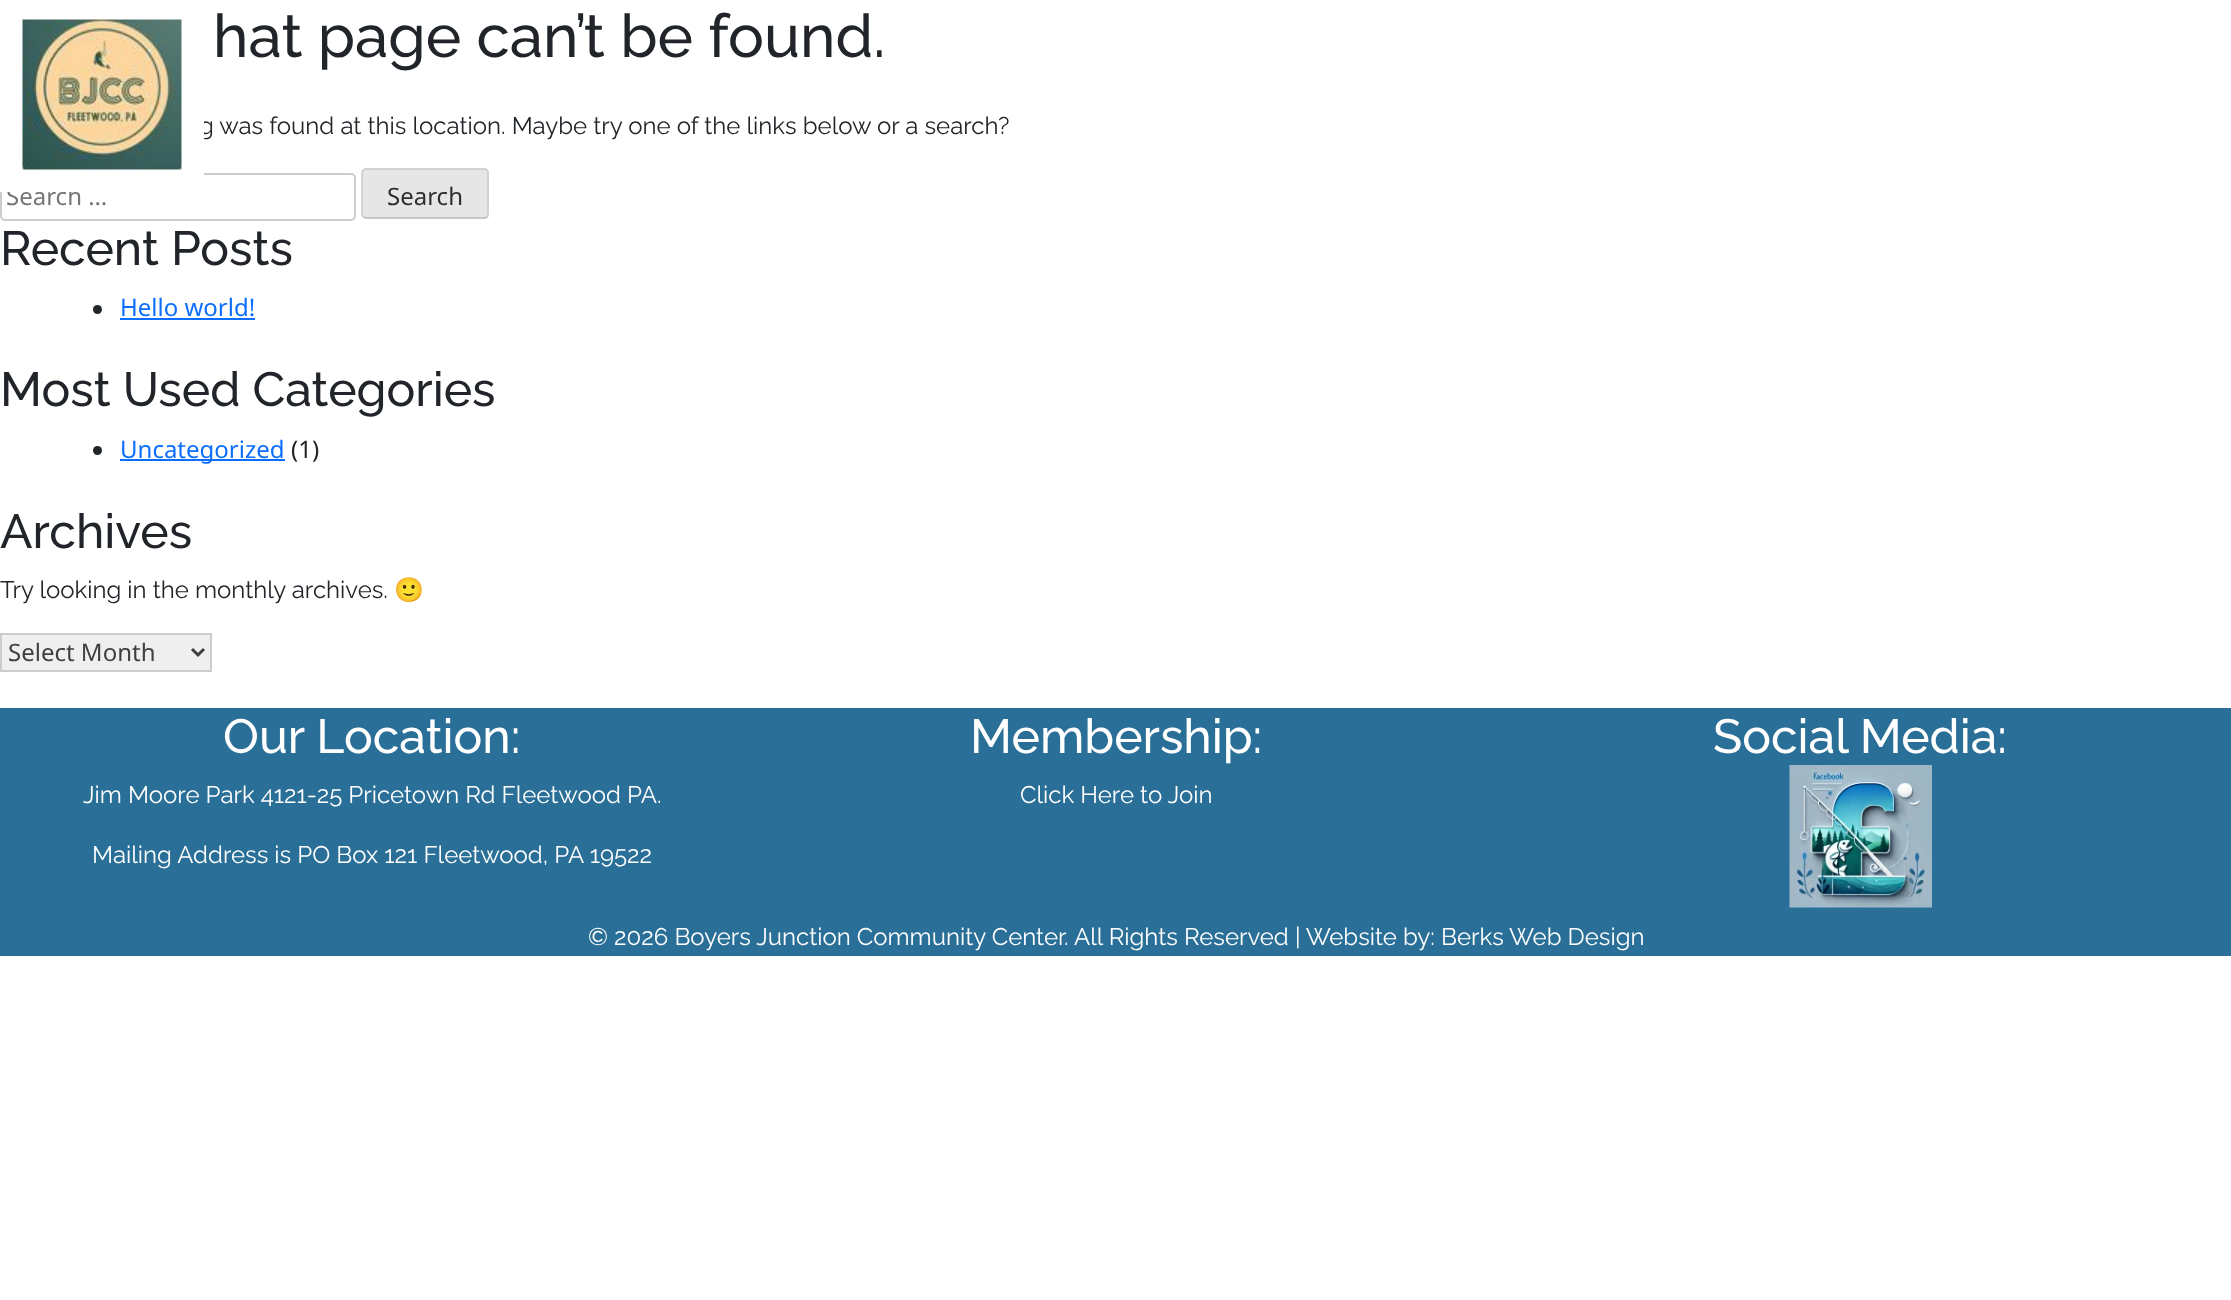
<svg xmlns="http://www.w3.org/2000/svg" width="2231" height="1300">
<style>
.a{font:500 60px Raleway;fill:#212529}
.b{font:24px Raleway;fill:#212529}
.c{font:24px Noto Sans;fill:#757575}
.d{font:24px Noto Sans;fill:#2e2e2e}
.e{font:500 48px Raleway;fill:#212529}
.f{font:24px Noto Sans;fill:#0d6efd}
.g{font:24px Noto Sans;fill:#212529}
.h{font:24px Noto Color Emoji;fill:#212529}
.i{font:24px Noto Sans;fill:#404040}
.j{font:500 48px Raleway;fill:#fff}
.k{font:24px Raleway;fill:#fff}
</style>
<rect width="100%" height="100%" fill="#fff"/>
<rect fill="none" stroke="#ccc" stroke-width="2" x="1" y="174" width="354" height="46" rx="4"/>
<rect fill="#e6e6e6" x="362" y="168" width="127" height="51" rx="5"/>
<path fill="none" stroke="#bbb" stroke-width="1.5" d="M487 217l-2 1h-99h-20l-2.5-1"/>
<path fill="none" stroke="#ccc" stroke-width="1.5" d="M363.5 217c-1-.5-1.5-1.5-1.5-2.5v-42c0-1 .5-2 1.5-2.5c.5-1 1.5-1 2.5-1h118.5c1 0 2 0 2.5 1c1 .5 1 1.5 1 2.5v42c0 1 0 2-1 2.5"/>
<circle fill="#212529" cx="97.5" cy="309.5" r="4.5"/>
<path fill="#0d6efd" d="M120 318h135v2H120z"/>
<circle fill="#212529" cx="97.5" cy="450.5" r="4.5"/>
<path fill="#0d6efd" d="M120 459h165v2H120z"/>
<path fill="#efefef" stroke="#ccc" stroke-width="2" d="M1 634h210v37H1z"/>
<path fill="none" stroke="#404040" stroke-width="3" d="M192 649l6 6l6-6"/>
<path fill="#2a6f97" d="M0 708h2231v248H0z"/>
<image href="2.png" x="1789" y="765" width="143" height="143"/>
<text class="a" x="213" y="57">hat page can’t be found.</text>
<text class="b" x="199" y="134">g was found at this location. Maybe try one of the links below or a search?</text>
<text class="c" x="6" y="205">Search …</text>
<text class="d" x="387" y="205">Search</text>
<text class="e" x="0" y="265">Recent Posts</text>
<text class="f" x="120" y="316">Hello world!</text>
<text class="e" x="0" y="406">Most Used Categories</text>
<text class="f" x="120" y="458">Uncategorized</text>
<text class="g" x="291" y="458">(1)</text>
<text class="e" x="0" y="548">Archives</text>
<text class="b" x="0" y="598">Try looking in the monthly archives.</text>
<text class="h" x="394" y="598">🙂</text>
<text class="i" x="8" y="661">Select Month</text>
<path fill="#fff" d="M0 121h204v71H0z"/>
<image href="1.png" x="22" y="19" width="160" height="151"/>
<text class="j" x="223" y="753">Our Location:</text>
<text class="k" x="83" y="803">Jim Moore Park 4121-25 Pricetown Rd Fleetwood PA.</text>
<text class="k" x="92" y="863">Mailing Address is PO Box 121 Fleetwood, PA 19522</text>
<text class="j" x="970" y="753">Membership:</text>
<text class="k" x="1020" y="803">Click Here to Join</text>
<text class="j" x="1713" y="753">Social Media:</text>
<text class="k" x="588" y="945">© 2026 Boyers Junction Community Center. All Rights Reserved | Website by: Berks Web Design</text>
</svg>
